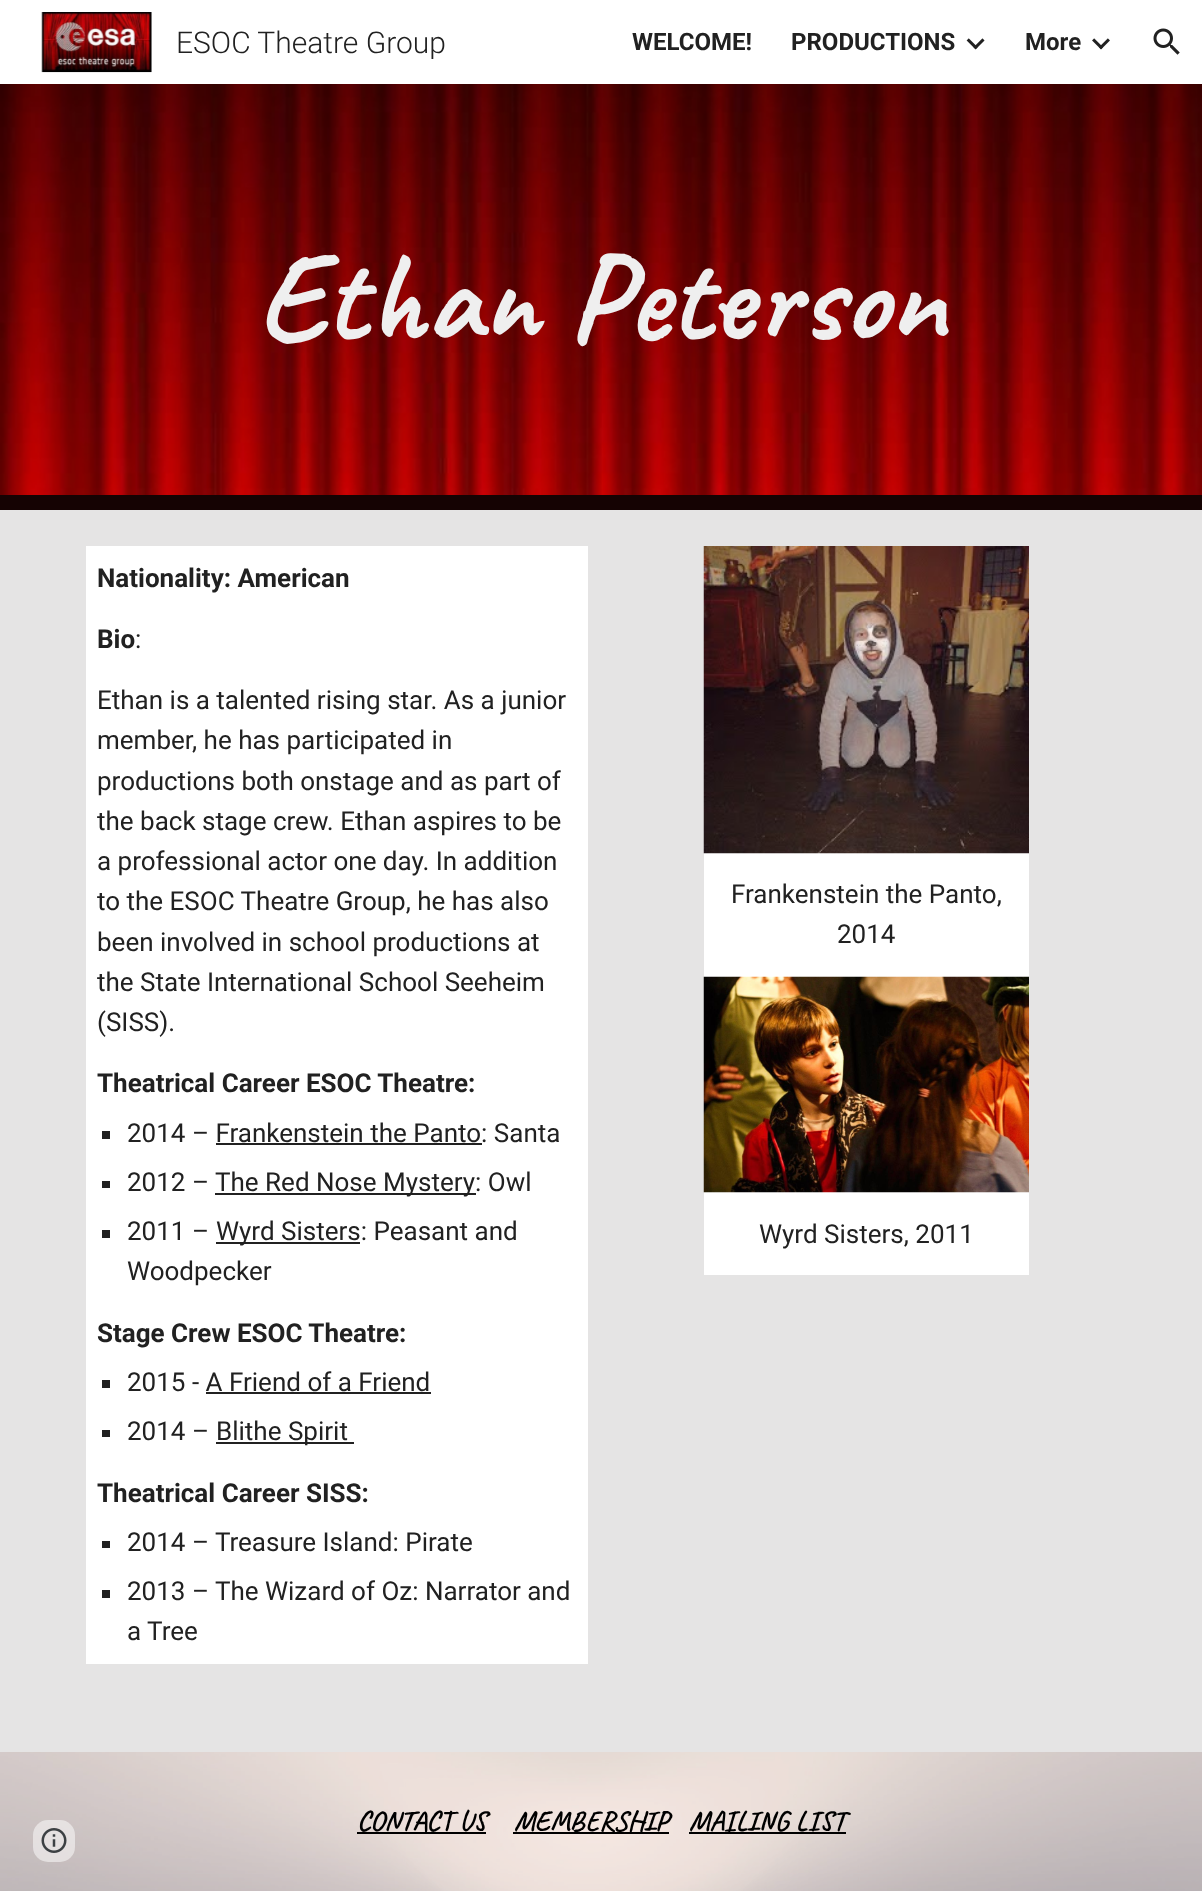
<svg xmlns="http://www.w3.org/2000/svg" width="1202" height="1891">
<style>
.a{font:300 30px Roboto;fill:#212121}
.b{font:bold 24px Roboto;fill:#212121}
.c{font:bold 126px Caveat;fill:#efefef}
.d{font:bold 26px Roboto;fill:#212121}
.e{font:26px Roboto;fill:#212121}
.f{font:bold 28px Caveat;fill:#000}
</style>
<rect width="100%" height="100%" fill="#e5e4e4"/>
<path fill="#fff" d="M0 0h1202v84H0z"/>
<image href="1.png" x="41" y="12" width="111" height="61"/>
<image href="2.png" x="966" y="38" width="19" height="12"/>
<image href="3.png" x="1092" y="38" width="18" height="12"/>
<image href="4.png" x="1153" y="28" width="27" height="27"/>
<image href="5.png" x="0" y="84" width="1202" height="411"/>
<path fill="#150303" d="M0 495h1202v15H0z"/>
<path fill="#fff" d="M86 546h502v1118H86z"/>
<path fill="#212121" d="M102 1131h8v8H102z"/>
<path fill="#212121" d="M216 1143h266v2H216z"/>
<path fill="#212121" d="M102 1181h8v7H102z"/>
<path fill="#212121" d="M215 1193h261v2H215z"/>
<path fill="#212121" d="M102 1230h8v8H102z"/>
<path fill="#212121" d="M216 1242h144v2H216z"/>
<path fill="#212121" d="M102 1380h8v8H102z"/>
<path fill="#212121" d="M206 1392h225v2H206z"/>
<path fill="#212121" d="M102 1430h8v7H102z"/>
<path fill="#212121" d="M216 1442h138v2H216z"/>
<path fill="#212121" d="M102 1541h8v7H102z"/>
<path fill="#212121" d="M102 1590h8v8H102z"/>
<path fill="#fff" d="M704 853h325v124H704z"/>
<image href="6.png" x="703" y="546" width="326" height="308"/>
<path fill="#fff" d="M704 1192h325v83H704z"/>
<image href="7.png" x="703" y="976" width="326" height="217"/>
<image href="9.png" x="0" y="1752" width="1202" height="139"/>
<rect fill="#ffffff80" x="33" y="1820" width="42" height="42" rx="15"/>
<image href="8.png" x="41" y="1828" width="26" height="25"/>
<path fill="#000" d="M357 1832h129v2H357z"/>
<path fill="#000" d="M513 1832h156v2H513z"/>
<path fill="#000" d="M689 1832h157v2H689z"/>
<text class="a" x="176" y="53">ESOC Theatre Group</text>
<text class="b" x="632" y="50">WELCOME!</text>
<text class="b" x="791" y="50">PRODUCTIONS</text>
<text class="b" x="1025" y="50">More</text>
<text class="c" x="257" y="339" word-spacing="-1">Ethan Peterson</text>
<text class="d" x="97" y="587">Nationality: American</text>
<text class="d" x="97" y="648">Bio</text>
<text class="e" x="135" y="648">:</text>
<text class="e" x="97" y="709">Ethan is a talented rising star. As a junior</text>
<text class="e" x="97" y="749">member, he has participated in</text>
<text class="e" x="97" y="790">productions both onstage and as part of</text>
<text class="e" x="97" y="830">the back stage crew. Ethan aspires to be</text>
<text class="e" x="97" y="870">a professional actor one day. In addition</text>
<text class="e" x="97" y="910">to the ESOC Theatre Group, he has also</text>
<text class="e" x="97" y="951">been involved in school productions at</text>
<text class="e" x="97" y="991">the State International School Seeheim</text>
<text class="e" x="97" y="1031">(SISS).</text>
<text class="d" x="97" y="1092">Theatrical Career ESOC Theatre:</text>
<text class="e" x="127" y="1142">2014 – Frankenstein the Panto: Santa</text>
<text class="e" x="127" y="1191">2012 –</text>
<text class="e" x="215" y="1191">The Red Nose Mystery: Owl</text>
<text class="e" x="127" y="1240">2011 –</text>
<text class="e" x="216" y="1240">Wyrd Sisters: Peasant and</text>
<text class="e" x="127" y="1280">Woodpecker</text>
<text class="d" x="97" y="1342">Stage Crew ESOC Theatre:</text>
<text class="e" x="127" y="1391">2015 - A Friend of a Friend</text>
<text class="e" x="127" y="1440">2014 –</text>
<text class="e" x="216" y="1440">Blithe Spirit</text>
<text class="d" x="97" y="1502">Theatrical Career SISS:</text>
<text class="e" x="127" y="1551">2014 – Treasure Island: Pirate</text>
<text class="e" x="127" y="1600">2013 – The Wizard of Oz: Narrator and</text>
<text class="e" x="127" y="1640">a Tree</text>
<text class="e" x="731" y="903">Frankenstein the Panto,</text>
<text class="e" x="837" y="943">2014</text>
<text class="e" x="759" y="1243">Wyrd Sisters, 2011</text>
<text class="f" x="357" y="1830">CONTACT US</text>
<text class="f" x="514" y="1830">MEMBERSHIP</text>
<text class="f" x="689" y="1830">MAILING LIST</text>
</svg>
